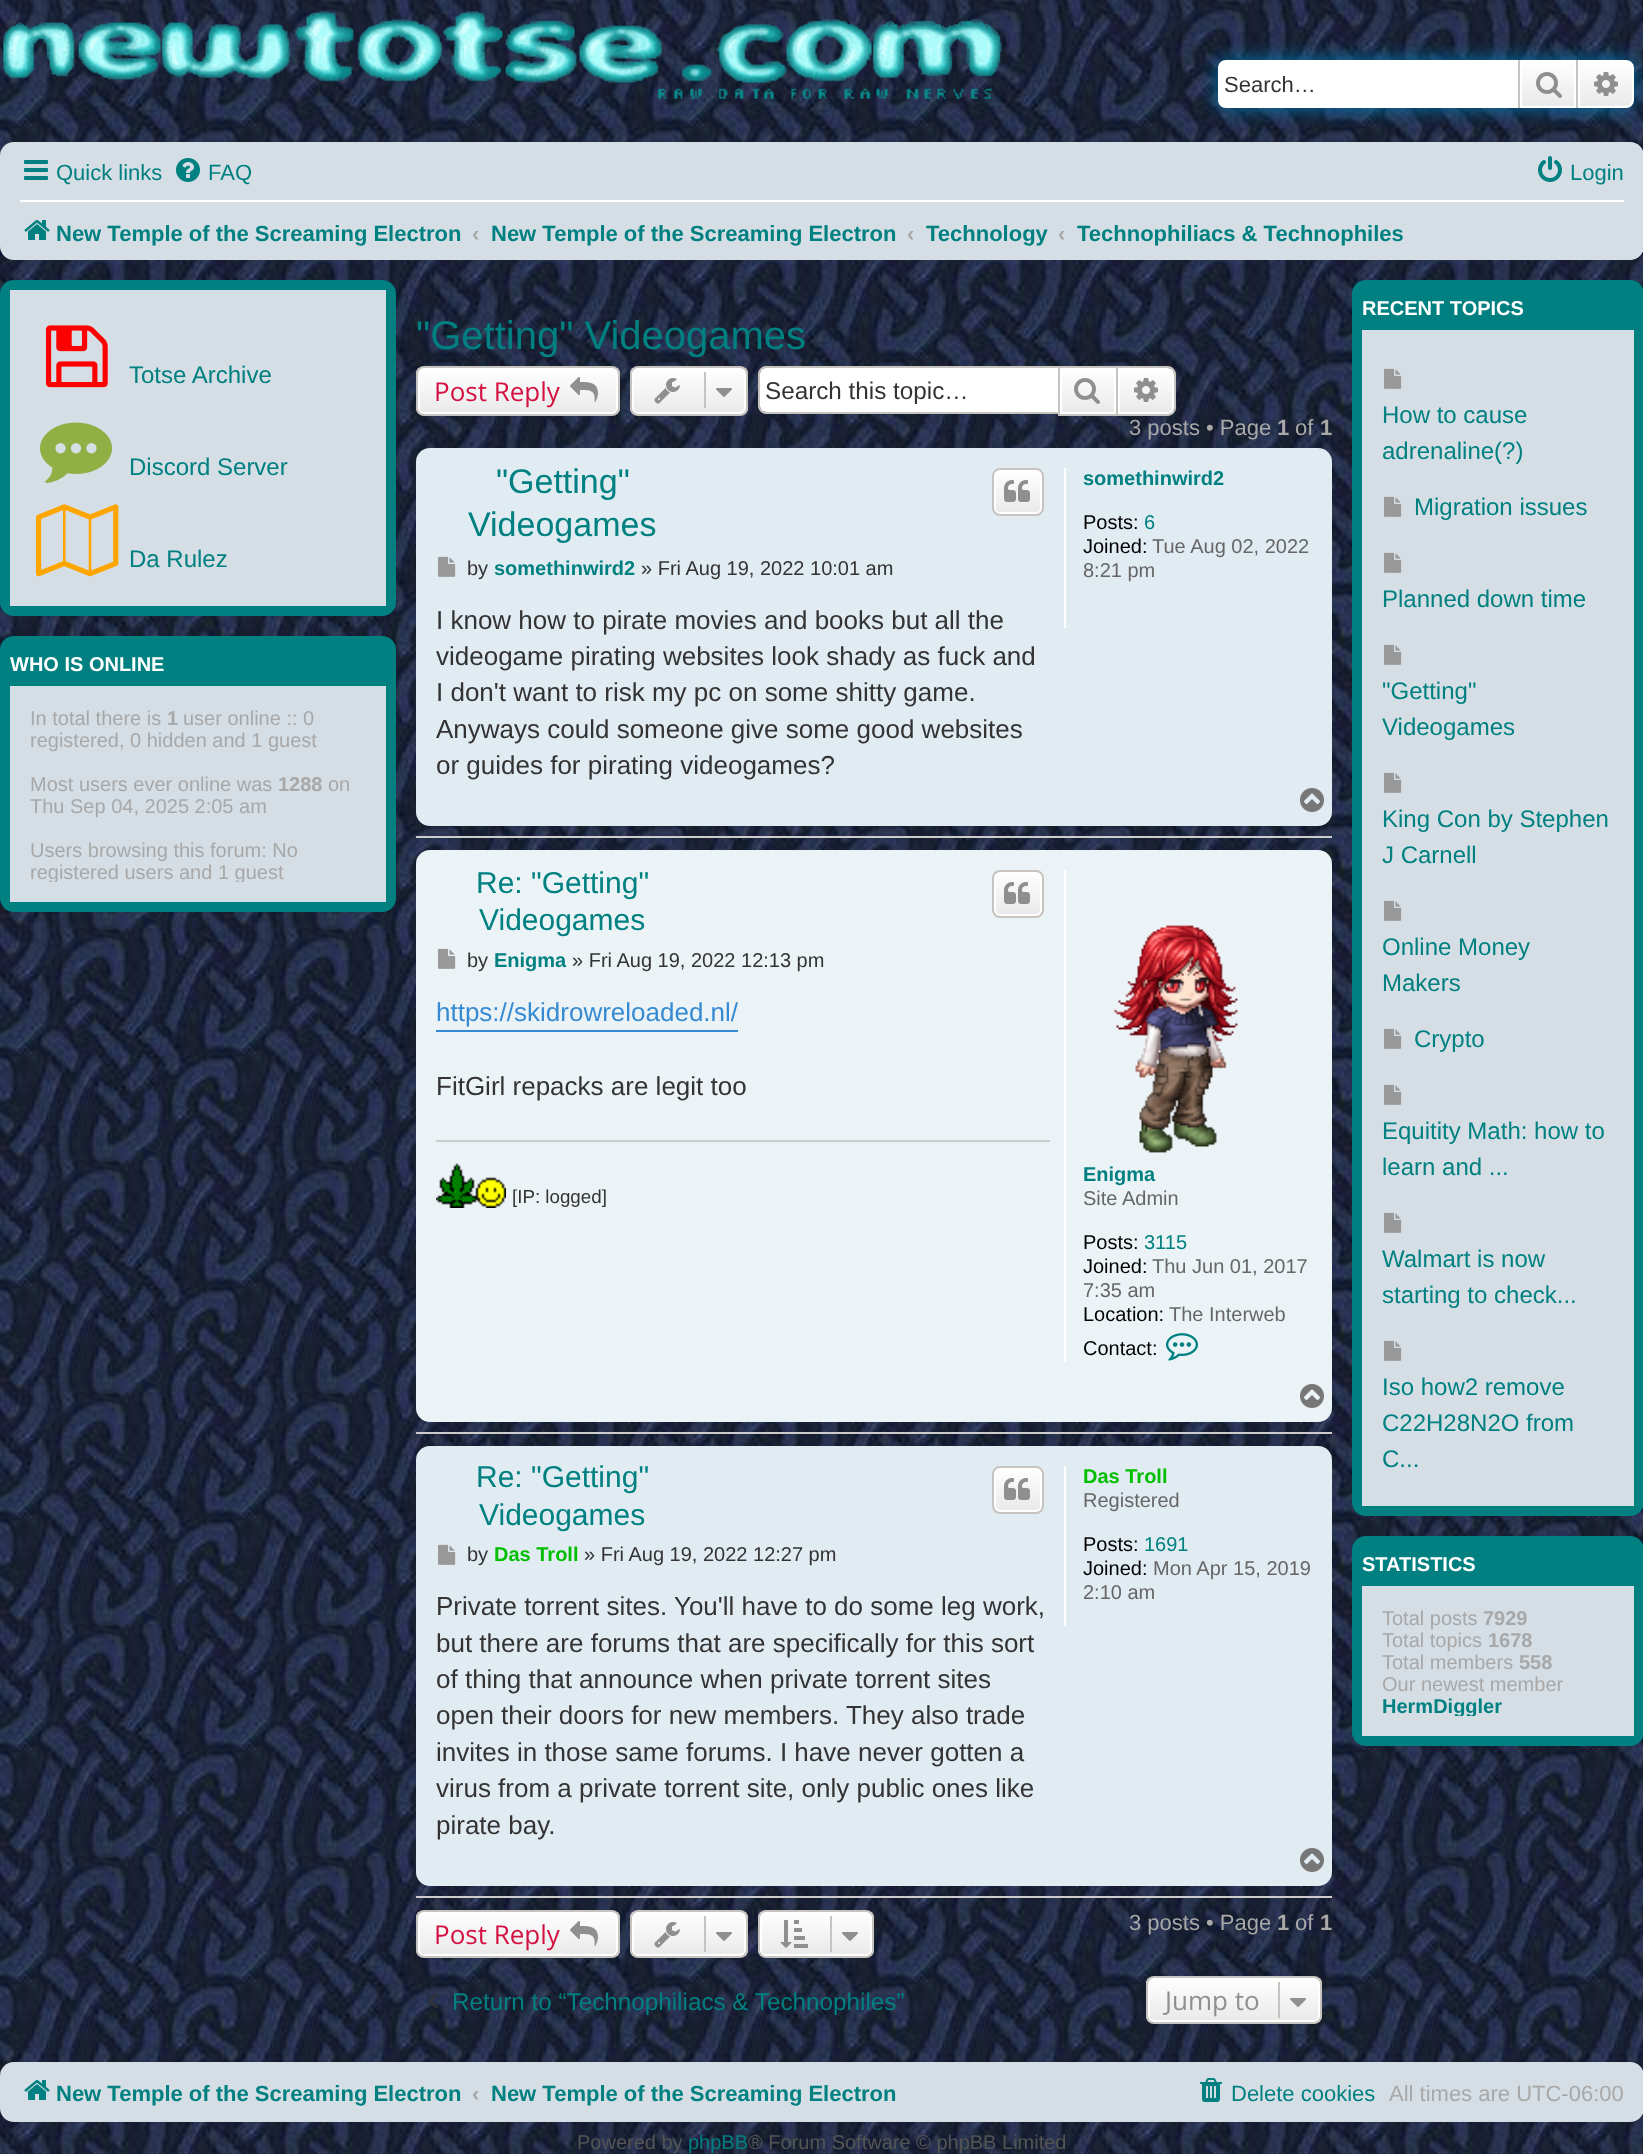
<svg xmlns="http://www.w3.org/2000/svg" width="1643" height="2154">
<style>
.a{font:22px Liberation Sans;fill:#333}
.b{font:22px Liberation Sans;fill:#008080}
.c{font:bold 22px Liberation Sans;fill:#008080}
.d{font:bold 22px Liberation Sans;fill:#a8a8a8}
.e{font:24px Liberation Sans;fill:#008080}
.f{font:bold 20px Liberation Sans;fill:#fff}
.g{font:20px Liberation Sans;fill:#a8a8a8}
.h{font:bold 20px Liberation Sans;fill:#a8a8a8}
.i{font:40px Liberation Sans;fill:#008080}
.j{font:26px Open Sans;fill:#d31141}
.k{font:24.25px Liberation Sans;fill:#333}
.l{font:22px Liberation Sans;fill:#a8a8a8}
.m{font:34px Liberation Sans;fill:#008080}
.n{font:20px Liberation Sans;fill:#333}
.o{font:bold 20px Liberation Sans;fill:#008080}
.p{font:26px Liberation Sans;fill:#333}
.q{font:20px Liberation Sans;fill:#000}
.r{font:20px Liberation Sans;fill:#008080}
.s{font:20px Liberation Sans;fill:#666}
.t{font:30px Liberation Sans;fill:#008080}
.u{font:26px Liberation Sans;fill:#368ad2}
.v{font:18.75px Liberation Sans;fill:#333}
.w{font:bold 20px Liberation Sans;fill:#00bf00}
.x{font:24.25px Liberation Sans;fill:#008080}
.y{font:26px Open Sans;fill:#8f8f8f}
.z{font:20px Liberation Sans;fill:#555}
</style>
<defs>
<linearGradient id="g1" gradientUnits="userSpaceOnUse" x1="1548" y1="60" x2="1548" y2="108"><stop offset="0" stop-color="#fff"/><stop offset="1" stop-color="#e9e9e9"/></linearGradient>
<linearGradient id="g2" gradientUnits="userSpaceOnUse" x1="1606" y1="60" x2="1606" y2="108"><stop offset="0" stop-color="#fff"/><stop offset="1" stop-color="#e9e9e9"/></linearGradient>
<clipPath id="clip1"><rect x="416" y="366" width="204" height="50" rx="8"/></clipPath>
<linearGradient id="g3" gradientUnits="userSpaceOnUse" x1="518" y1="368" x2="518" y2="414"><stop offset="0" stop-color="#fff"/><stop offset="1" stop-color="#e9e9e9"/></linearGradient>
<clipPath id="clip2"><rect x="630" y="366" width="118" height="50" rx="8"/></clipPath>
<linearGradient id="g4" gradientUnits="userSpaceOnUse" x1="689" y1="368" x2="689" y2="414"><stop offset="0" stop-color="#fff"/><stop offset="1" stop-color="#e9e9e9"/></linearGradient>
<linearGradient id="g5" gradientUnits="userSpaceOnUse" x1="1088" y1="368" x2="1088" y2="414"><stop offset="0" stop-color="#fff"/><stop offset="1" stop-color="#e9e9e9"/></linearGradient>
<linearGradient id="g6" gradientUnits="userSpaceOnUse" x1="1146" y1="368" x2="1146" y2="414"><stop offset="0" stop-color="#fff"/><stop offset="1" stop-color="#e9e9e9"/></linearGradient>
<clipPath id="clip3"><rect x="992" y="468" width="52" height="48" rx="8"/></clipPath>
<linearGradient id="g7" gradientUnits="userSpaceOnUse" x1="1018" y1="470" x2="1018" y2="514"><stop offset="0" stop-color="#fff"/><stop offset="1" stop-color="#e9e9e9"/></linearGradient>
<clipPath id="clip4"><rect x="992" y="870" width="52" height="48" rx="8"/></clipPath>
<linearGradient id="g8" gradientUnits="userSpaceOnUse" x1="1018" y1="872" x2="1018" y2="916"><stop offset="0" stop-color="#fff"/><stop offset="1" stop-color="#e9e9e9"/></linearGradient>
<clipPath id="clip5"><rect x="992" y="1466" width="52" height="48" rx="8"/></clipPath>
<linearGradient id="g9" gradientUnits="userSpaceOnUse" x1="1018" y1="1468" x2="1018" y2="1512"><stop offset="0" stop-color="#fff"/><stop offset="1" stop-color="#e9e9e9"/></linearGradient>
<clipPath id="clip6"><rect x="416" y="1910" width="204" height="48" rx="8"/></clipPath>
<linearGradient id="g10" gradientUnits="userSpaceOnUse" x1="518" y1="1912" x2="518" y2="1956"><stop offset="0" stop-color="#fff"/><stop offset="1" stop-color="#e9e9e9"/></linearGradient>
<clipPath id="clip7"><rect x="630" y="1910" width="118" height="48" rx="8"/></clipPath>
<linearGradient id="g11" gradientUnits="userSpaceOnUse" x1="689" y1="1912" x2="689" y2="1956"><stop offset="0" stop-color="#fff"/><stop offset="1" stop-color="#e9e9e9"/></linearGradient>
<clipPath id="clip8"><rect x="758" y="1910" width="116" height="48" rx="8"/></clipPath>
<linearGradient id="g12" gradientUnits="userSpaceOnUse" x1="816" y1="1912" x2="816" y2="1956"><stop offset="0" stop-color="#fff"/><stop offset="1" stop-color="#e9e9e9"/></linearGradient>
<clipPath id="clip9"><rect x="1146" y="1976" width="176" height="48" rx="8"/></clipPath>
<linearGradient id="g13" gradientUnits="userSpaceOnUse" x1="1234" y1="1978" x2="1234" y2="2022"><stop offset="0" stop-color="#fff"/><stop offset="1" stop-color="#e9e9e9"/></linearGradient>
<clipPath id="clip10"><path d="M30 706h336v176H30z"/></clipPath>
<clipPath id="clip11"><path d="M1382 1606h232v110H1382z"/></clipPath>
</defs>
<rect width="100%" height="100%" fill="#fff"/>
<image href="1.png" x="0" y="0" width="1643" height="2154"/>
<image href="2.png" x="3" y="11" width="999" height="88"/>
<rect fill="#0075b0" filter="blur(10px)" x="1218" y="60" width="416" height="48" rx="8"/>
<path fill="#fff" d="M1226 60h292v48h-292c-4.5 0-8-3.5-8-8v-32c0-4.5 3.5-8 8-8z"/>
<path fill="url(#g1)" d="M1522 62h52v44H1522z"/>
<path fill="none" stroke="#fff" stroke-width="2" d="M1521 61h54v46H1521z"/>
<path fill="#c7c3bf" d="M1576 60h2v48H1576z"/>
<path fill="#c7c3bf" d="M1518 60h2v48H1518z"/>
<image href="3.png" x="1536" y="72" width="26" height="26"/>
<path fill="url(#g2)" stroke="#fff" stroke-width="2" d="M1579 61h47c4 0 7 3 7 7v32c0 4-3 7-7 7h-47z"/>
<image href="4.png" x="1594" y="72" width="24" height="24"/>
<rect fill="#d5dee5" y="142" width="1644" height="118" rx="14"/>
<image href="5.png" x="24" y="160" width="24" height="20"/>
<image href="6.png" x="176" y="158" width="24" height="24"/>
<image href="7.png" x="1538" y="156" width="24" height="26"/>
<path fill="#fff" d="M20 200h1604v2H20z"/>
<image href="8.png" x="24" y="220" width="26" height="20"/>
<rect fill="#008080" y="280" width="396" height="336" rx="14"/>
<path fill="#d5dee5" d="M10 290h376v316H10z"/>
<image href="9.png" x="46" y="325" width="62" height="63"/>
<image href="10.png" x="40" y="422" width="72" height="61"/>
<image href="11.png" x="36" y="504" width="83" height="73"/>
<rect fill="#008080" y="636" width="396" height="276" rx="14"/>
<path fill="#d5dee5" d="M10 686h376v216H10z"/>
<g clip-path="url(#clip1)">
<path fill="url(#g3)" d="M416 368h204v46H416z"/>
</g>
<rect fill="none" stroke="#fff" stroke-width="2" x="419" y="369" width="198" height="44" rx="5"/>
<rect fill="none" stroke="#c7c3bf" stroke-width="2" x="417" y="367" width="202" height="48" rx="7"/>
<image href="12.png" x="570" y="377" width="28" height="25"/>
<g clip-path="url(#clip2)">
<path fill="url(#g4)" d="M630 368h118v46H630z"/>
</g>
<rect fill="none" stroke="#fff" stroke-width="2" x="633" y="369" width="112" height="44" rx="5"/>
<rect fill="none" stroke="#c7c3bf" stroke-width="2" x="631" y="367" width="116" height="48" rx="7"/>
<image href="13.png" x="654" y="378" width="26" height="26"/>
<path fill="#c7c3bf" d="M704 372h2v36H704z"/>
<image href="14.png" x="716" y="388" width="16" height="9"/>
<path fill="#fff" d="M766 368h292v44h-292c-3.5 0-6-2.5-6-6v-32c0-3.5 2.5-6 6-6z"/>
<path fill="#c7c3bf" fill-rule="evenodd" d="M766 366h292v48h-292c-4 0-8-4-8-8v-32c0-4 4-8 8-8zm0 2h292v44h-292c-3 0-6-3-6-6v-32c0-3 3-6 6-6z"/>
<path fill="url(#g5)" d="M1062 370h52v42H1062z"/>
<path fill="none" stroke="#fff" stroke-width="2" d="M1061 369h54v44H1061z"/>
<path fill="none" stroke="#c7c3bf" stroke-width="2" d="M1059 367h58v48H1059z"/>
<image href="15.png" x="1074" y="378" width="26" height="26"/>
<path fill="url(#g6)" stroke="#fff" stroke-width="2" d="M1119 369h49c3 0 5 2 5 5v34c0 3-2 5-5 5h-49z"/>
<path fill="#c7c3bf" fill-rule="evenodd" d="M1118 366h50c4 0 8 4 8 8v34c0 4-4 8-8 8h-50zm0 2h50c3 0 6 3 6 6v34c0 3-3 6-6 6h-50z"/>
<image href="16.png" x="1134" y="378" width="24" height="24"/>
<rect fill="#e1ebf2" x="416" y="448" width="916" height="378" rx="14"/>
<g clip-path="url(#clip3)">
<path fill="url(#g7)" d="M992 470h52v44H992z"/>
</g>
<rect fill="none" stroke="#fff" stroke-width="2" x="995" y="471" width="46" height="42" rx="5"/>
<rect fill="none" stroke="#c7c3bf" stroke-width="2" x="993" y="469" width="50" height="46" rx="7"/>
<image href="17.png" x="1004" y="480" width="26" height="22"/>
<image href="18.png" x="438" y="556" width="18" height="21"/>
<path fill="#fff" d="M1064 468h2v160H1064z"/>
<image href="19.png" x="1300" y="788" width="24" height="24"/>
<path fill="#ccc" d="M416 836h916v2H416z"/>
<rect fill="#ecf3f7" x="416" y="850" width="916" height="572" rx="14"/>
<g clip-path="url(#clip4)">
<path fill="url(#g8)" d="M992 872h52v44H992z"/>
</g>
<rect fill="none" stroke="#fff" stroke-width="2" x="995" y="873" width="46" height="42" rx="5"/>
<rect fill="none" stroke="#c7c3bf" stroke-width="2" x="993" y="871" width="50" height="46" rx="7"/>
<image href="17.png" x="1004" y="882" width="26" height="22"/>
<image href="20.png" x="438" y="948" width="18" height="21"/>
<path fill="#368ad2" d="M436 1030h302v2H436z"/>
<path fill="#ccc" d="M436 1140h614v2H436z"/>
<image href="21.png" x="436" y="1163" width="70" height="45"/>
<path fill="#fff" d="M1064 870h2v492H1064z"/>
<image href="22.png" x="1114" y="925" width="124" height="228"/>
<image href="23.png" x="1166" y="1333" width="32" height="28"/>
<image href="24.png" x="1300" y="1384" width="24" height="24"/>
<path fill="#ccc" d="M416 1432h916v2H416z"/>
<rect fill="#e1ebf2" x="416" y="1446" width="916" height="440" rx="14"/>
<g clip-path="url(#clip5)">
<path fill="url(#g9)" d="M992 1468h52v44H992z"/>
</g>
<rect fill="none" stroke="#fff" stroke-width="2" x="995" y="1469" width="46" height="42" rx="5"/>
<rect fill="none" stroke="#c7c3bf" stroke-width="2" x="993" y="1467" width="50" height="46" rx="7"/>
<image href="17.png" x="1004" y="1478" width="26" height="22"/>
<image href="18.png" x="438" y="1544" width="18" height="21"/>
<path fill="#fff" d="M1064 1466h2v160H1064z"/>
<image href="19.png" x="1300" y="1848" width="24" height="24"/>
<path fill="#ccc" d="M416 1896h916v2H416z"/>
<g clip-path="url(#clip6)">
<path fill="url(#g10)" d="M416 1912h204v44H416z"/>
</g>
<rect fill="none" stroke="#fff" stroke-width="2" x="419" y="1913" width="198" height="42" rx="5"/>
<rect fill="none" stroke="#c7c3bf" stroke-width="2" x="417" y="1911" width="202" height="46" rx="7"/>
<image href="25.png" x="570" y="1921" width="28" height="25"/>
<g clip-path="url(#clip7)">
<path fill="url(#g11)" d="M630 1912h118v44H630z"/>
</g>
<rect fill="none" stroke="#fff" stroke-width="2" x="633" y="1913" width="112" height="42" rx="5"/>
<rect fill="none" stroke="#c7c3bf" stroke-width="2" x="631" y="1911" width="116" height="46" rx="7"/>
<image href="26.png" x="654" y="1922" width="26" height="26"/>
<path fill="#c7c3bf" d="M704 1916h2v36H704z"/>
<image href="27.png" x="716" y="1932" width="16" height="9"/>
<g clip-path="url(#clip8)">
<path fill="url(#g12)" d="M758 1912h116v44H758z"/>
</g>
<rect fill="none" stroke="#fff" stroke-width="2" x="761" y="1913" width="110" height="42" rx="5"/>
<rect fill="none" stroke="#c7c3bf" stroke-width="2" x="759" y="1911" width="114" height="46" rx="7"/>
<image href="28.png" x="780" y="1920" width="28" height="28"/>
<path fill="#c7c3bf" d="M830 1916h2v36H830z"/>
<image href="27.png" x="842" y="1932" width="16" height="9"/>
<image href="29.png" x="429" y="1993" width="9" height="16"/>
<g clip-path="url(#clip9)">
<path fill="url(#g13)" d="M1146 1978h176v44H1146z"/>
</g>
<rect fill="none" stroke="#fff" stroke-width="2" x="1149" y="1979" width="170" height="42" rx="5"/>
<rect fill="none" stroke="#c7c3bf" stroke-width="2" x="1147" y="1977" width="174" height="46" rx="7"/>
<path fill="#c7c3bf" d="M1278 1982h2v36H1278z"/>
<image href="27.png" x="1290" y="1998" width="16" height="9"/>
<rect fill="#008080" x="1352" y="280" width="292" height="1236" rx="14"/>
<path fill="#d5dee5" d="M1362 330h272v1176H1362z"/>
<image href="30.png" x="1384" y="368" width="18" height="21"/>
<image href="30.png" x="1384" y="496" width="18" height="21"/>
<image href="30.png" x="1384" y="552" width="18" height="21"/>
<image href="30.png" x="1384" y="644" width="18" height="21"/>
<image href="30.png" x="1384" y="772" width="18" height="21"/>
<image href="30.png" x="1384" y="900" width="18" height="21"/>
<image href="30.png" x="1384" y="1028" width="18" height="21"/>
<image href="30.png" x="1384" y="1084" width="18" height="21"/>
<image href="30.png" x="1384" y="1212" width="18" height="21"/>
<image href="30.png" x="1384" y="1340" width="18" height="21"/>
<rect fill="#008080" x="1352" y="1536" width="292" height="210" rx="14"/>
<path fill="#d5dee5" d="M1362 1586h272v150H1362z"/>
<rect fill="#d5dee5" y="2062" width="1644" height="60" rx="14"/>
<image href="8.png" x="24" y="2080" width="26" height="20"/>
<image href="31.png" x="1200" y="2078" width="22" height="24"/>
<text class="a" x="1224" y="92">Search…</text>
<text class="b" x="56" y="180">Quick links</text>
<text class="b" x="208" y="180">FAQ</text>
<text class="b" x="1570" y="180">Login</text>
<text class="c" x="56" y="241">New Temple of the Screaming Electron</text>
<text class="d" x="472" y="241">‹</text>
<text class="c" x="491" y="241">New Temple of the Screaming Electron</text>
<text class="d" x="907" y="241">‹</text>
<text class="c" x="926" y="241">Technology</text>
<text class="d" x="1058" y="241">‹</text>
<text class="c" x="1077" y="241">Technophiliacs &amp; Technophiles</text>
<text class="e" x="129" y="383">Totse Archive</text>
<text class="e" x="129" y="475">Discord Server</text>
<text class="e" x="129" y="567">Da Rulez</text>
<text class="f" x="10" y="671">WHO IS ONLINE</text>
<text class="g" x="30" y="725">In total there is</text>
<text class="h" x="167" y="725">1</text>
<text class="g" x="183" y="725">user online :: 0</text>
<text class="g" x="30" y="747">registered, 0 hidden and 1 guest</text>
<text class="g" x="30" y="791">Most users ever online was</text>
<text class="h" x="278" y="791">1288</text>
<text class="g" x="328" y="791">on</text>
<text class="g" x="30" y="813">Thu Sep 04, 2025 2:05 am</text>
<text class="g" x="30" y="857">Users browsing this forum: No</text>
<g clip-path="url(#clip10)">
<text class="g" x="30" y="879">registered users and 1 guest</text>
</g>
<text class="i" x="416" y="349">"Getting" Videogames</text>
<text class="j" x="434" y="401">Post Reply</text>
<text class="k" x="765" y="399">Search this topic…</text>
<text class="l" x="1129" y="435">3 posts • Page</text>
<text class="d" x="1277" y="435">1</text>
<text class="l" x="1295" y="435">of</text>
<text class="d" x="1320" y="435">1</text>
<text class="m" x="496" y="493">"Getting"</text>
<text class="m" x="468" y="536">Videogames</text>
<text class="n" x="467" y="575">by</text>
<text class="o" x="494" y="575">somethinwird2</text>
<text class="n" x="641" y="575">» Fri Aug 19, 2022 10:01 am</text>
<text class="p" x="436" y="629">I know how to pirate movies and books but all the</text>
<text class="p" x="436" y="665">videogame pirating websites look shady as fuck and</text>
<text class="p" x="436" y="701">I don't want to risk my pc on some shitty game.</text>
<text class="p" x="436" y="738">Anyways could someone give some good websites</text>
<text class="p" x="436" y="774">or guides for pirating videogames?</text>
<text class="o" x="1083" y="485">somethinwird2</text>
<text class="q" x="1083" y="529">Posts:</text>
<text class="r" x="1144" y="529">6</text>
<text class="q" x="1083" y="553">Joined:</text>
<text class="s" x="1152" y="553">Tue Aug 02, 2022</text>
<text class="s" x="1083" y="577">8:21 pm</text>
<text class="t" x="476" y="893">Re: "Getting"</text>
<text class="t" x="479" y="930">Videogames</text>
<text class="n" x="467" y="967">by</text>
<text class="o" x="494" y="967">Enigma</text>
<text class="n" x="572" y="967">» Fri Aug 19, 2022 12:13 pm</text>
<text class="u" x="436" y="1021">https://skidrowreloaded.nl/</text>
<text class="p" x="436" y="1095">FitGirl repacks are legit too</text>
<text class="v" x="512" y="1203">[IP: logged]</text>
<text class="o" x="1083" y="1181">Enigma</text>
<text class="s" x="1083" y="1205">Site Admin</text>
<text class="q" x="1083" y="1249">Posts:</text>
<text class="r" x="1144" y="1249">3115</text>
<text class="q" x="1083" y="1273">Joined:</text>
<text class="s" x="1152" y="1273">Thu Jun 01, 2017</text>
<text class="s" x="1083" y="1297">7:35 am</text>
<text class="q" x="1083" y="1321">Location:</text>
<text class="s" x="1169" y="1321">The Interweb</text>
<text class="q" x="1083" y="1355">Contact:</text>
<text class="t" x="476" y="1487">Re: "Getting"</text>
<text class="t" x="479" y="1525">Videogames</text>
<text class="n" x="467" y="1561">by</text>
<text class="w" x="494" y="1561">Das Troll</text>
<text class="n" x="584" y="1561">» Fri Aug 19, 2022 12:27 pm</text>
<text class="p" x="436" y="1615">Private torrent sites. You'll have to do some leg work,</text>
<text class="p" x="436" y="1652">but there are forums that are specifically for this sort</text>
<text class="p" x="436" y="1688">of thing that announce when private torrent sites</text>
<text class="p" x="436" y="1724">open their doors for new members. They also trade</text>
<text class="p" x="436" y="1761">invites in those same forums. I have never gotten a</text>
<text class="p" x="436" y="1797">virus from a private torrent site, only public ones like</text>
<text class="p" x="436" y="1834">pirate bay.</text>
<text class="w" x="1083" y="1483">Das Troll</text>
<text class="s" x="1083" y="1507">Registered</text>
<text class="q" x="1083" y="1551">Posts:</text>
<text class="r" x="1144" y="1551">1691</text>
<text class="q" x="1083" y="1575">Joined:</text>
<text class="s" x="1153" y="1575">Mon Apr 15, 2019</text>
<text class="s" x="1083" y="1599">2:10 am</text>
<text class="j" x="434" y="1944">Post Reply</text>
<text class="l" x="1129" y="1930">3 posts • Page</text>
<text class="d" x="1277" y="1930">1</text>
<text class="l" x="1295" y="1930">of</text>
<text class="d" x="1320" y="1930">1</text>
<text class="x" x="452" y="2010">Return to “Technophiliacs &amp; Technophiles”</text>
<text class="y" x="1165" y="2010">Jump to</text>
<text class="f" x="1362" y="315">RECENT TOPICS</text>
<text class="e" x="1382" y="423">How to cause</text>
<text class="e" x="1382" y="459">adrenaline(?)</text>
<text class="e" x="1414" y="515">Migration issues</text>
<text class="e" x="1382" y="607">Planned down time</text>
<text class="e" x="1382" y="699">"Getting"</text>
<text class="e" x="1382" y="735">Videogames</text>
<text class="e" x="1382" y="827">King Con by Stephen</text>
<text class="e" x="1382" y="863">J Carnell</text>
<text class="e" x="1382" y="955">Online Money</text>
<text class="e" x="1382" y="991">Makers</text>
<text class="e" x="1414" y="1047">Crypto</text>
<text class="e" x="1382" y="1139">Equitity Math: how to</text>
<text class="e" x="1382" y="1175">learn and ...</text>
<text class="e" x="1382" y="1267">Walmart is now</text>
<text class="e" x="1382" y="1303">starting to check...</text>
<text class="e" x="1382" y="1395">Iso how2 remove</text>
<text class="e" x="1382" y="1431">C22H28N2O from</text>
<text class="e" x="1382" y="1467">C...</text>
<text class="f" x="1362" y="1571">STATISTICS</text>
<text class="g" x="1382" y="1625">Total posts</text>
<text class="h" x="1483" y="1625">7929</text>
<text class="g" x="1382" y="1647">Total topics</text>
<text class="h" x="1488" y="1647">1678</text>
<text class="g" x="1382" y="1669">Total members</text>
<text class="h" x="1519" y="1669">558</text>
<text class="g" x="1382" y="1691">Our newest member</text>
<g clip-path="url(#clip11)">
<text class="o" x="1382" y="1713">HermDiggler</text>
</g>
<text class="c" x="56" y="2101">New Temple of the Screaming Electron</text>
<text class="d" x="472" y="2101">‹</text>
<text class="c" x="491" y="2101">New Temple of the Screaming Electron</text>
<text class="b" x="1231" y="2101">Delete cookies</text>
<text class="l" x="1389" y="2101">All times are UTC-06:00</text>
<text class="z" x="577" y="2149">Powered by</text>
<text class="r" x="688" y="2149">phpBB</text>
<text class="z" x="748" y="2149">® Forum Software © phpBB Limited</text>
</svg>
